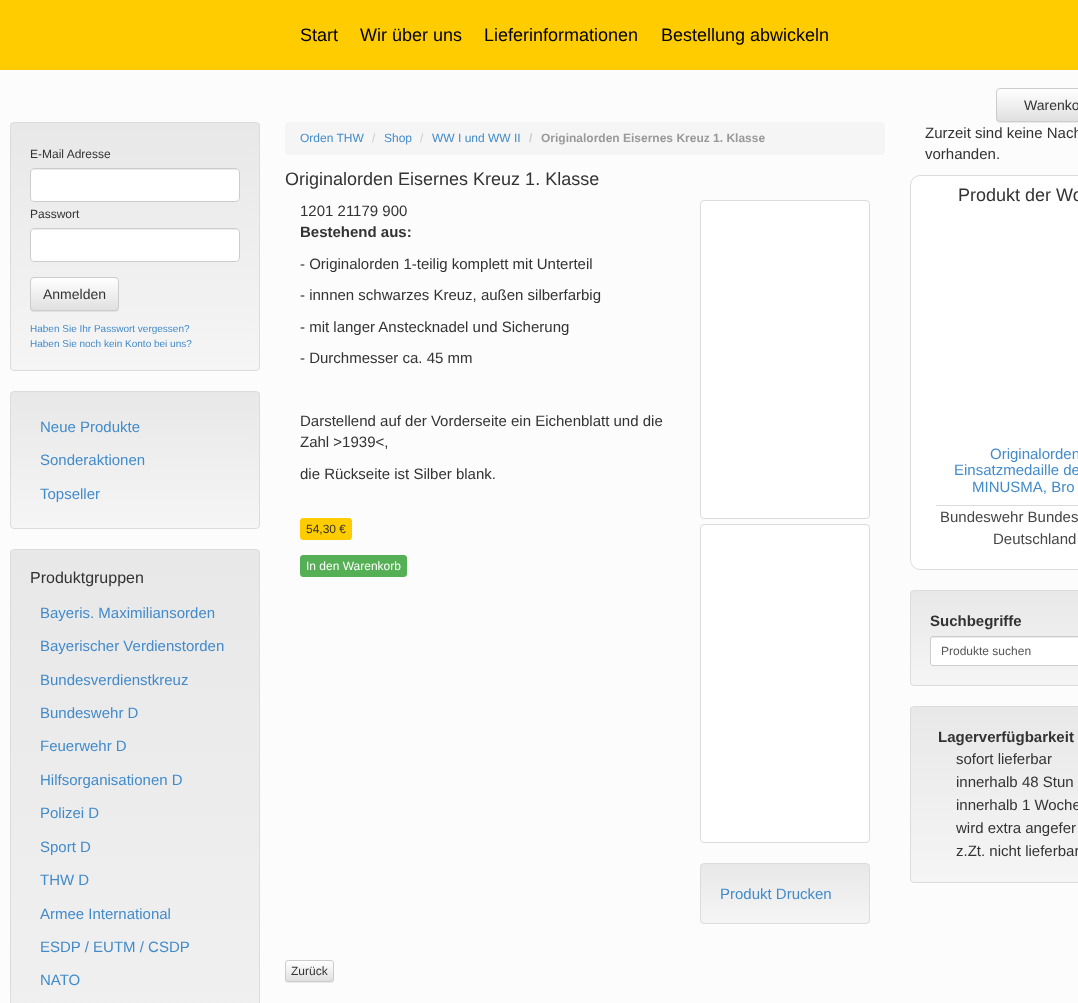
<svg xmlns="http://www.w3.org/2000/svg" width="1078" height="1003">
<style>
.a{font:18px Liberation Sans;fill:#000}
.b{font:14px Liberation Sans;fill:#333}
.c{font:12px Liberation Sans;fill:#333}
.d{font:10px Liberation Sans;fill:#428bca}
.e{font:15px Liberation Sans;fill:#428bca}
.f{font:16px Liberation Sans;fill:#333}
.g{font:12px Liberation Sans;fill:#428bca}
.h{font:12px Liberation Sans;fill:#ccc}
.i{font:bold 12px Liberation Sans;fill:#ccc}
.j{font:bold 12px Liberation Sans;fill:#999}
.k{font:18px Liberation Sans;fill:#333}
.l{font:15px Liberation Sans;fill:#333}
.m{font:bold 15px Liberation Sans;fill:#333}
.n{font:12px Liberation Sans;fill:#fff}
.o{font:15px Liberation Sans;fill:#464646}
.p{font:12px Liberation Sans;fill:#555}
</style>
<defs>
<clipPath id="clip1"><rect x="996" y="88" width="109" height="34" rx="4"/></clipPath>
<linearGradient id="g1" gradientUnits="userSpaceOnUse" x1="1051" y1="89" x2="1051" y2="121"><stop offset="0" stop-color="#fff"/><stop offset="1" stop-color="#e0e0e0"/></linearGradient>
<clipPath id="clip2"><rect x="10" y="122" width="250" height="249" rx="4"/></clipPath>
<linearGradient id="g2" gradientUnits="userSpaceOnUse" x1="135" y1="123" x2="135" y2="370"><stop offset="0" stop-color="#e8e8e8"/><stop offset="1" stop-color="#f5f5f5"/></linearGradient>
<clipPath id="clip3"><rect x="30" y="277" width="89" height="34" rx="4"/></clipPath>
<linearGradient id="g3" gradientUnits="userSpaceOnUse" x1="75" y1="278" x2="75" y2="310"><stop offset="0" stop-color="#fff"/><stop offset="1" stop-color="#e0e0e0"/></linearGradient>
<clipPath id="clip4"><rect x="10" y="391" width="250" height="138" rx="4"/></clipPath>
<linearGradient id="g4" gradientUnits="userSpaceOnUse" x1="135" y1="392" x2="135" y2="528"><stop offset="0" stop-color="#e8e8e8"/><stop offset="1" stop-color="#f5f5f5"/></linearGradient>
<clipPath id="clip5"><rect x="10" y="549" width="250" height="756" rx="4"/></clipPath>
<linearGradient id="g5" gradientUnits="userSpaceOnUse" x1="135" y1="550" x2="135" y2="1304"><stop offset="0" stop-color="#e8e8e8"/><stop offset="1" stop-color="#f5f5f5"/></linearGradient>
<clipPath id="clip6"><rect x="700" y="863" width="170" height="61" rx="4"/></clipPath>
<linearGradient id="g6" gradientUnits="userSpaceOnUse" x1="785" y1="864" x2="785" y2="923"><stop offset="0" stop-color="#e8e8e8"/><stop offset="1" stop-color="#f5f5f5"/></linearGradient>
<clipPath id="clip7"><rect x="285" y="960" width="49" height="22" rx="3"/></clipPath>
<linearGradient id="g7" gradientUnits="userSpaceOnUse" x1="310" y1="961" x2="310" y2="981"><stop offset="0" stop-color="#fff"/><stop offset="1" stop-color="#e0e0e0"/></linearGradient>
<clipPath id="clip8"><rect x="910" y="590" width="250" height="96" rx="4"/></clipPath>
<linearGradient id="g8" gradientUnits="userSpaceOnUse" x1="1035" y1="591" x2="1035" y2="685"><stop offset="0" stop-color="#e8e8e8"/><stop offset="1" stop-color="#f5f5f5"/></linearGradient>
<clipPath id="clip9"><rect x="910" y="706" width="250" height="177" rx="4"/></clipPath>
<linearGradient id="g9" gradientUnits="userSpaceOnUse" x1="1035" y1="707" x2="1035" y2="882"><stop offset="0" stop-color="#e8e8e8"/><stop offset="1" stop-color="#f5f5f5"/></linearGradient>
</defs>
<rect width="100%" height="100%" fill="#fcfcfc"/>
<path fill="#fc0" d="M0 0h1078v70H0z"/>
<rect fill="#00000012" filter="blur(0.5px)" x="996" y="89" width="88" height="34" rx="4"/>
<g clip-path="url(#clip1)">
<path fill="url(#g1)" d="M996 89h82v32H996z"/>
</g>
<rect fill="none" stroke="#ccc" x="996.5" y="88.5" width="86" height="33" rx="3.5"/>
<g clip-path="url(#clip2)">
<path fill="url(#g2)" d="M10 123h250v247H10z"/>
</g>
<rect fill="none" stroke="#dcdcdc" x="10.5" y="122.5" width="249" height="248" rx="3.5"/>
<rect fill="#fff" x="30" y="168" width="210" height="34" rx="4"/>
<path fill="#ececec" d="M34 170h202c2 0 3 1 3 3c0-2-1-4-3-4h-203c-2 1-2 2-2 4c0-2 1-3 3-3z"/>
<rect fill="none" stroke="#ccc" x="30.5" y="168.5" width="209" height="33" rx="3.5"/>
<rect fill="#fff" x="30" y="228" width="210" height="34" rx="4"/>
<path fill="#ececec" d="M34 230h202c2 0 3 1 3 3c0-2-1-4-3-4h-203c-2 1-2 2-2 4c0-2 1-3 3-3z"/>
<rect fill="none" stroke="#ccc" x="30.5" y="228.5" width="209" height="33" rx="3.5"/>
<rect fill="#00000012" filter="blur(0.5px)" x="30" y="278" width="89" height="34" rx="4"/>
<g clip-path="url(#clip3)">
<path fill="url(#g3)" d="M30 278h89v32H30z"/>
</g>
<rect fill="none" stroke="#ccc" x="30.5" y="277.5" width="88" height="33" rx="3.5"/>
<g clip-path="url(#clip4)">
<path fill="url(#g4)" d="M10 392h250v136H10z"/>
</g>
<rect fill="none" stroke="#dcdcdc" x="10.5" y="391.5" width="249" height="137" rx="3.5"/>
<g clip-path="url(#clip5)">
<path fill="url(#g5)" d="M10 550h250v453H10z"/>
</g>
<rect fill="none" stroke="#dcdcdc" x="10.5" y="549.5" width="249" height="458" rx="3.5"/>
<rect fill="#f5f5f5" x="285" y="122" width="600" height="33" rx="4"/>
<rect fill="#fc0" stroke="#fc0" x="300.5" y="518.5" width="51" height="21" rx="2.5"/>
<rect fill="#55b055" stroke="#55b055" x="300.5" y="555.5" width="106" height="21" rx="2.5"/>
<rect fill="#fff" stroke="#dcdcdc" x="700.5" y="200.5" width="169" height="318" rx="3.5"/>
<rect fill="#fff" stroke="#dcdcdc" x="700.5" y="524.5" width="169" height="318" rx="3.5"/>
<g clip-path="url(#clip6)">
<path fill="url(#g6)" d="M700 864h170v59H700z"/>
</g>
<rect fill="none" stroke="#dcdcdc" x="700.5" y="863.5" width="169" height="60" rx="3.5"/>
<rect fill="#00000012" filter="blur(0.5px)" x="285" y="961" width="49" height="22" rx="3"/>
<g clip-path="url(#clip7)">
<path fill="url(#g7)" d="M285 961h49v20H285z"/>
</g>
<rect fill="none" stroke="#ccc" x="285.5" y="960.5" width="48" height="21" rx="2.5"/>
<rect fill="#fff" stroke="#dcdcdc" x="910.5" y="175.5" width="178" height="394" rx="9.5"/>
<path fill="#dcdcdc" d="M936 505h142v1H936z"/>
<g clip-path="url(#clip8)">
<path fill="url(#g8)" d="M910 591h168v94H910z"/>
</g>
<rect fill="none" stroke="#dcdcdc" x="910.5" y="590.5" width="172" height="95" rx="3.5"/>
<path fill="#fff" d="M933 636h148v30h-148c-1.5 0-3-1.5-3-3v-24c0-1.5 1.5-3 3-3z"/>
<path fill="#ececec" d="M933 638h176v-1h-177c-1 1-1 2-1 3c0-1 1-2 2-2z"/>
<path fill="none" stroke="#ccc" d="M933 636.5h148.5v29h-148.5c-1.5 0-2.5-1-2.5-2.5v-24c0-1.5 1-2.5 2.5-2.5z"/>
<g clip-path="url(#clip9)">
<path fill="url(#g9)" d="M910 707h168v175H910z"/>
</g>
<rect fill="none" stroke="#dcdcdc" x="910.5" y="706.5" width="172" height="176" rx="3.5"/>
<text class="a" x="300" y="41">Start</text>
<text class="a" x="360" y="41">Wir über uns</text>
<text class="a" x="484" y="41">Lieferinformationen</text>
<text class="a" x="661" y="41">Bestellung abwickeln</text>
<text class="b" x="1024" y="110">Warenko</text>
<text class="c" x="30" y="158">E-Mail Adresse</text>
<text class="c" x="30" y="218">Passwort</text>
<text class="b" x="43" y="299">Anmelden</text>
<text class="d" x="30" y="332">Haben Sie Ihr Passwort vergessen?</text>
<text class="d" x="30" y="347">Haben Sie noch kein Konto bei uns?</text>
<text class="e" x="40" y="432">Neue Produkte</text>
<text class="e" x="40" y="465">Sonderaktionen</text>
<text class="e" x="40" y="499">Topseller</text>
<text class="f" x="30" y="583">Produktgruppen</text>
<text class="e" x="40" y="618">Bayeris. Maximiliansorden</text>
<text class="e" x="40" y="651">Bayerischer Verdienstorden</text>
<text class="e" x="40" y="685">Bundesverdienstkreuz</text>
<text class="e" x="40" y="718">Bundeswehr D</text>
<text class="e" x="40" y="751">Feuerwehr D</text>
<text class="e" x="40" y="785">Hilfsorganisationen D</text>
<text class="e" x="40" y="818">Polizei D</text>
<text class="e" x="40" y="852">Sport D</text>
<text class="e" x="40" y="885">THW D</text>
<text class="e" x="40" y="919">Armee International</text>
<text class="e" x="40" y="952">ESDP / EUTM / CSDP</text>
<text class="e" x="40" y="985">NATO</text>
<text class="g" x="300" y="142">Orden THW</text>
<text class="h" x="372" y="142">/</text>
<text class="g" x="384" y="142">Shop</text>
<text class="h" x="420" y="142">/</text>
<text class="g" x="432" y="142">WW I und WW II</text>
<text class="i" x="529" y="142">/</text>
<text class="j" x="541" y="142">Originalorden Eisernes Kreuz 1. Klasse</text>
<text class="k" x="285" y="185">Originalorden Eisernes Kreuz 1. Klasse</text>
<text class="l" x="300" y="216">1201 21179 900</text>
<text class="m" x="300" y="237">Bestehend aus:</text>
<text class="l" x="300" y="269">- Originalorden 1-teilig komplett mit Unterteil</text>
<text class="l" x="300" y="300">- innnen schwarzes Kreuz, außen silberfarbig</text>
<text class="l" x="300" y="332">- mit langer Anstecknadel und Sicherung</text>
<text class="l" x="300" y="363">- Durchmesser ca. 45 mm</text>
<text class="l" x="300" y="426">Darstellend auf der Vorderseite ein Eichenblatt und die</text>
<text class="l" x="300" y="447">Zahl &gt;1939&lt;,</text>
<text class="l" x="300" y="479">die Rückseite ist Silber blank.</text>
<text class="c" x="306" y="533">54,30 €</text>
<text class="n" x="306" y="570">In den Warenkorb</text>
<text class="e" x="720" y="899">Produkt Drucken</text>
<text class="c" x="291" y="975">Zurück</text>
<text class="l" x="925" y="138">Zurzeit sind keine Nach</text>
<text class="l" x="925" y="159">vorhanden.</text>
<text class="k" x="958" y="201">Produkt der Wo</text>
<text class="e" x="990" y="459">Originalorden</text>
<text class="e" x="954" y="475">Einsatzmedaille de</text>
<text class="e" x="972" y="492">MINUSMA, Bro</text>
<text class="o" x="940" y="522">Bundeswehr Bundes</text>
<text class="o" x="993" y="544">Deutschland</text>
<text class="m" x="930" y="626">Suchbegriffe</text>
<text class="p" x="941" y="655">Produkte suchen</text>
<text class="m" x="938" y="742">Lagerverfügbarkeit</text>
<text class="l" x="956" y="764">sofort lieferbar</text>
<text class="l" x="956" y="787">innerhalb 48 Stun</text>
<text class="l" x="956" y="810">innerhalb 1 Woche</text>
<text class="l" x="956" y="833">wird extra angefer</text>
<text class="l" x="956" y="856">z.Zt. nicht lieferbar</text>
</svg>
